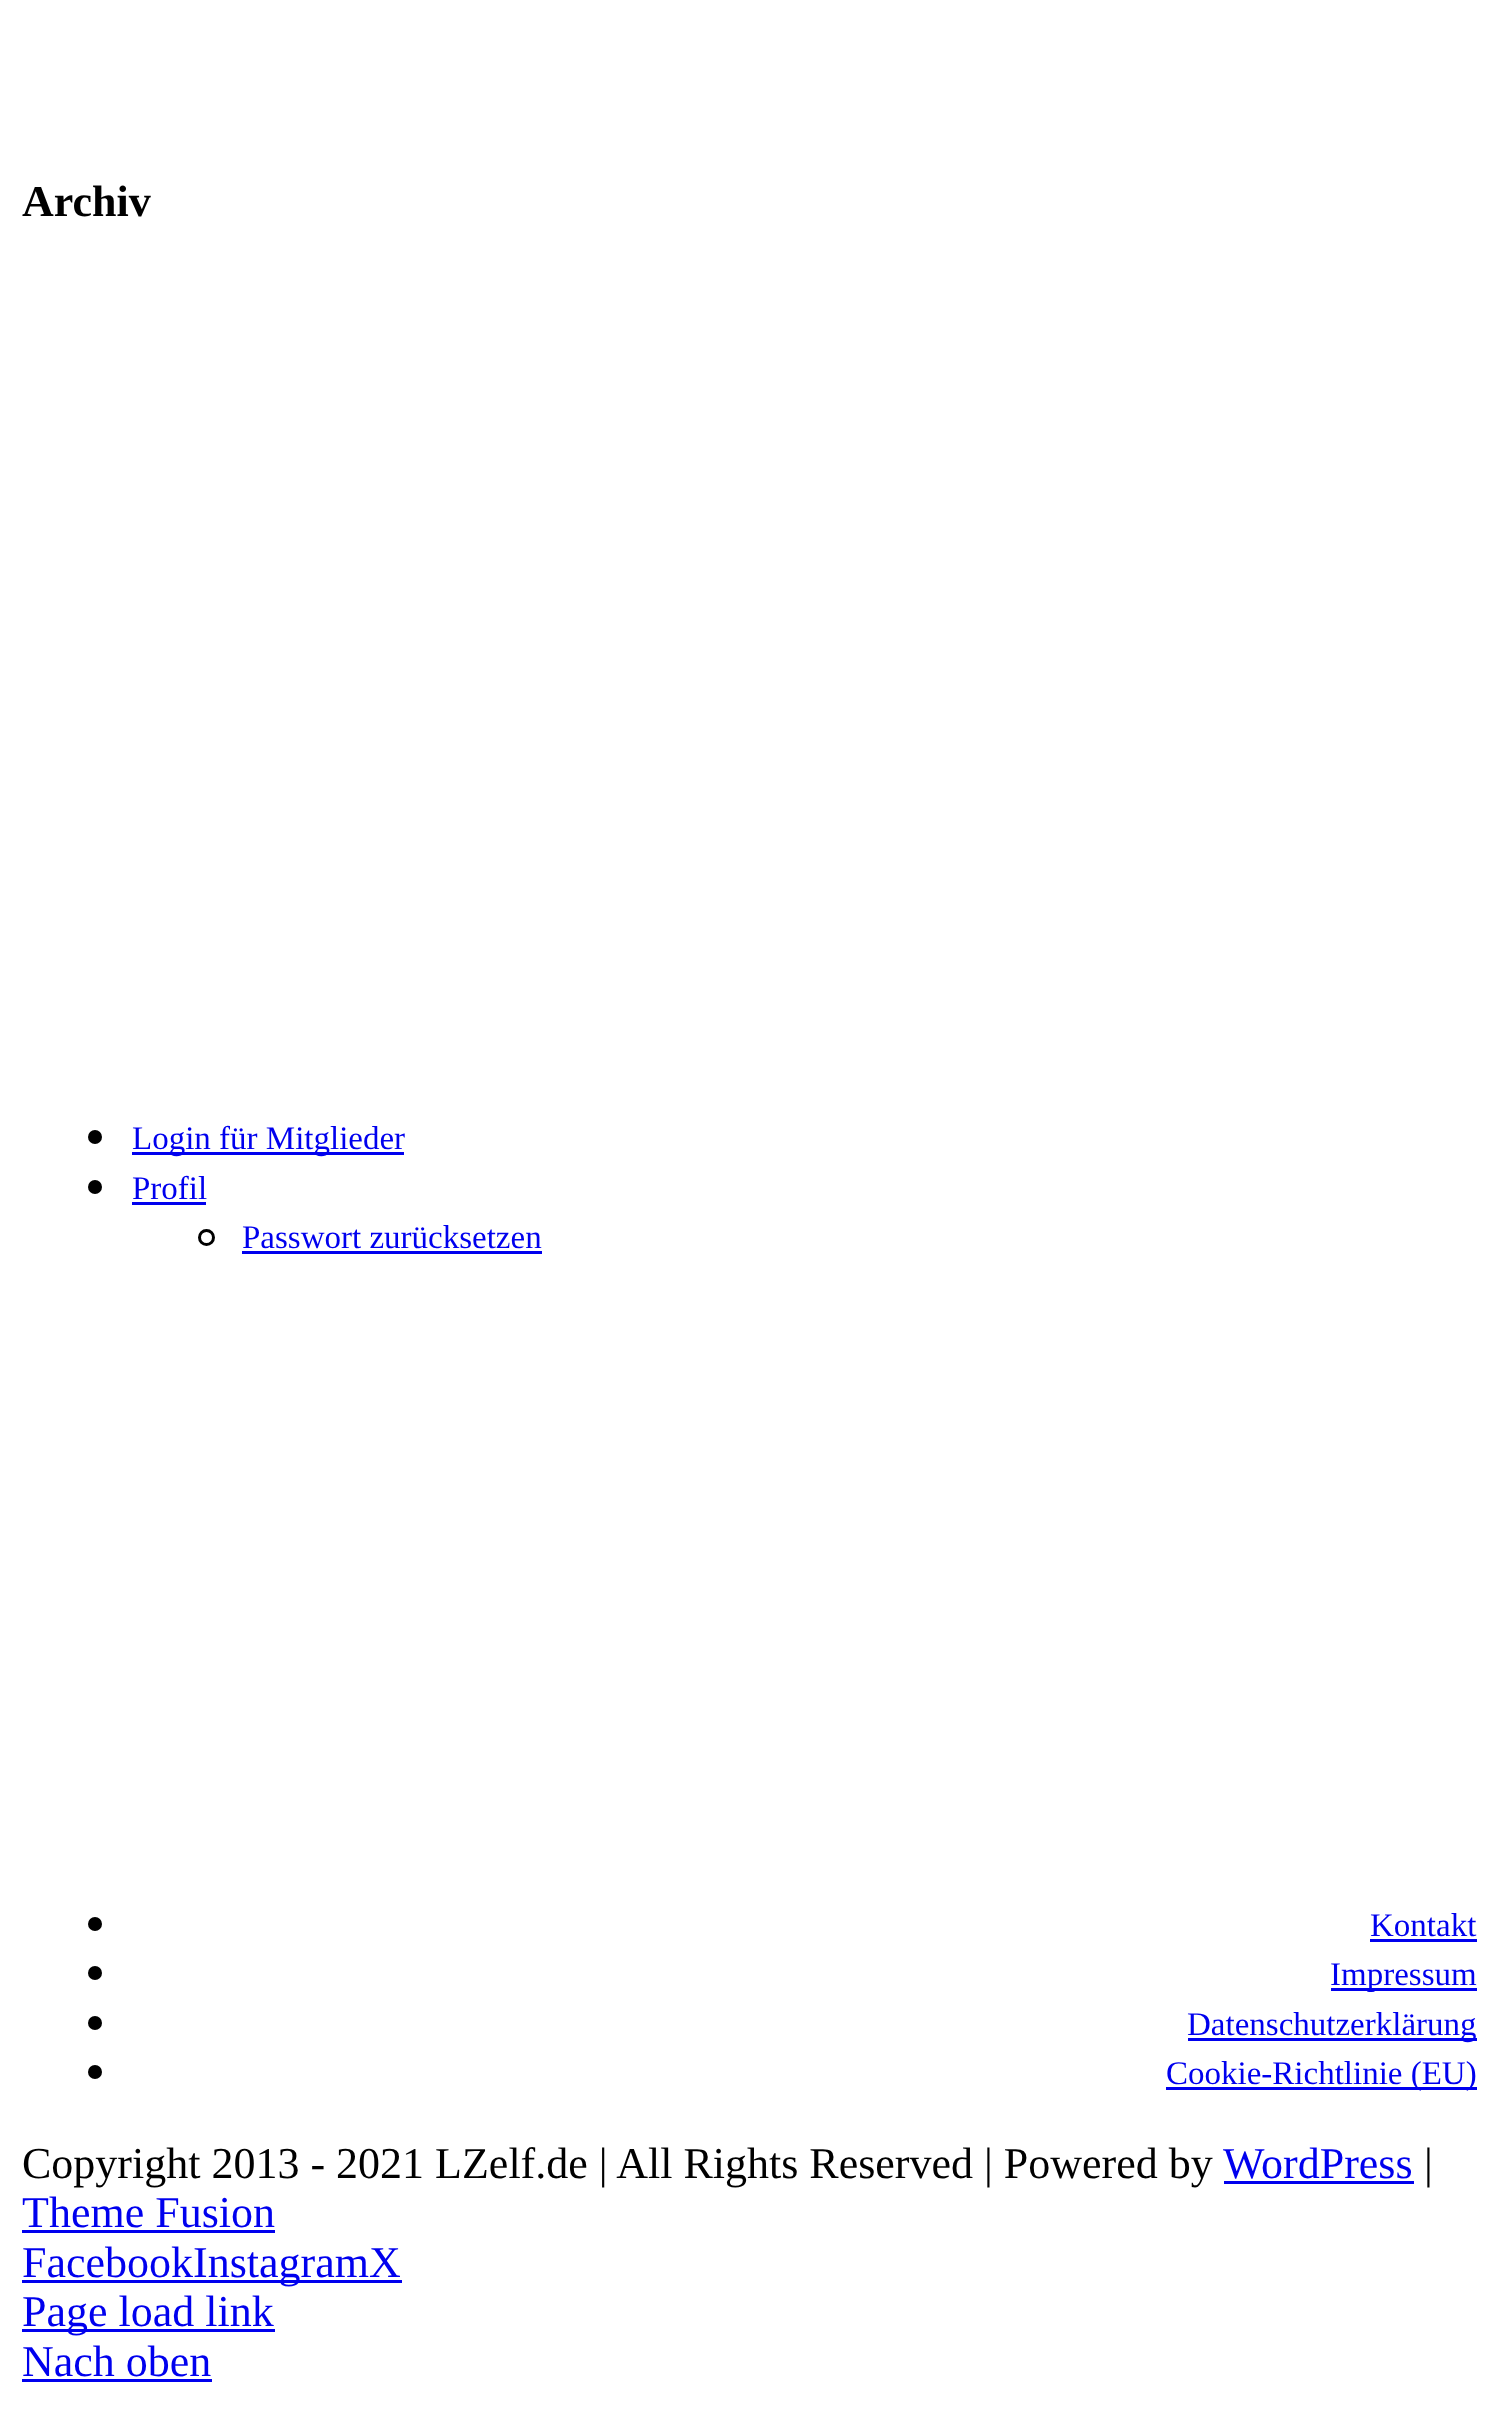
<svg xmlns="http://www.w3.org/2000/svg" width="1498" height="2409">
<style>
.a{font:bold 44px Liberation Serif;fill:#000}
.b{font:33px Liberation Serif;fill:#00e}
.c{font:44px Liberation Serif;fill:#000}
.d{font:44px Liberation Serif;fill:#00e}
</style>
<rect width="100%" height="100%" fill="#fff"/>
<circle fill="#000" cx="95" cy="1137" r="7"/>
<path fill="#00e" d="M132 1152h272v3H132z"/>
<circle fill="#000" cx="95" cy="1187" r="7"/>
<path fill="#00e" d="M132 1202h74v3H132z"/>
<circle fill="none" stroke="#000" stroke-width="3" cx="206.5" cy="1237.5" r="7"/>
<path fill="#00e" d="M242 1251h300v3H242z"/>
<circle fill="#000" cx="95" cy="1924" r="7"/>
<path fill="#00e" d="M1370 1939h107v3H1370z"/>
<circle fill="#000" cx="95" cy="1973" r="7"/>
<path fill="#00e" d="M1331 1988h146v3H1331z"/>
<circle fill="#000" cx="95" cy="2023" r="7"/>
<path fill="#00e" d="M1188 2038h289v3H1188z"/>
<circle fill="#000" cx="95" cy="2072" r="7"/>
<path fill="#00e" d="M1166 2087h311v3H1166z"/>
<path fill="#00e" d="M1224 2181h190v3H1224z"/>
<path fill="#00e" d="M22 2230h253v3H22z"/>
<path fill="#00e" d="M22 2280h380v3H22z"/>
<path fill="#00e" d="M22 2329h253v3H22z"/>
<path fill="#00e" d="M22 2379h190v3H22z"/>
<text class="a" x="22" y="216">Archiv</text>
<text class="b" x="132" y="1149">Login für Mitglieder</text>
<text class="b" x="132" y="1199">Profil</text>
<text class="b" x="242" y="1248">Passwort zurücksetzen</text>
<text class="b" x="1370" y="1936">Kontakt</text>
<text class="b" x="1330" y="1985">Impressum</text>
<text class="b" x="1187" y="2035">Datenschutzerklärung</text>
<text class="b" x="1166" y="2084">Cookie-Richtlinie (EU)</text>
<text class="c" x="22" y="2178">Copyright 2013 - 2021 LZelf.de | All Rights Reserved | Powered by</text>
<text class="d" x="1223" y="2178">WordPress</text>
<text class="c" x="1424" y="2178">|</text>
<text class="d" x="22" y="2227">Theme Fusion</text>
<text class="d" x="22" y="2277">FacebookInstagramX</text>
<text class="d" x="22" y="2326">Page load link</text>
<text class="d" x="22" y="2376">Nach oben</text>
</svg>
